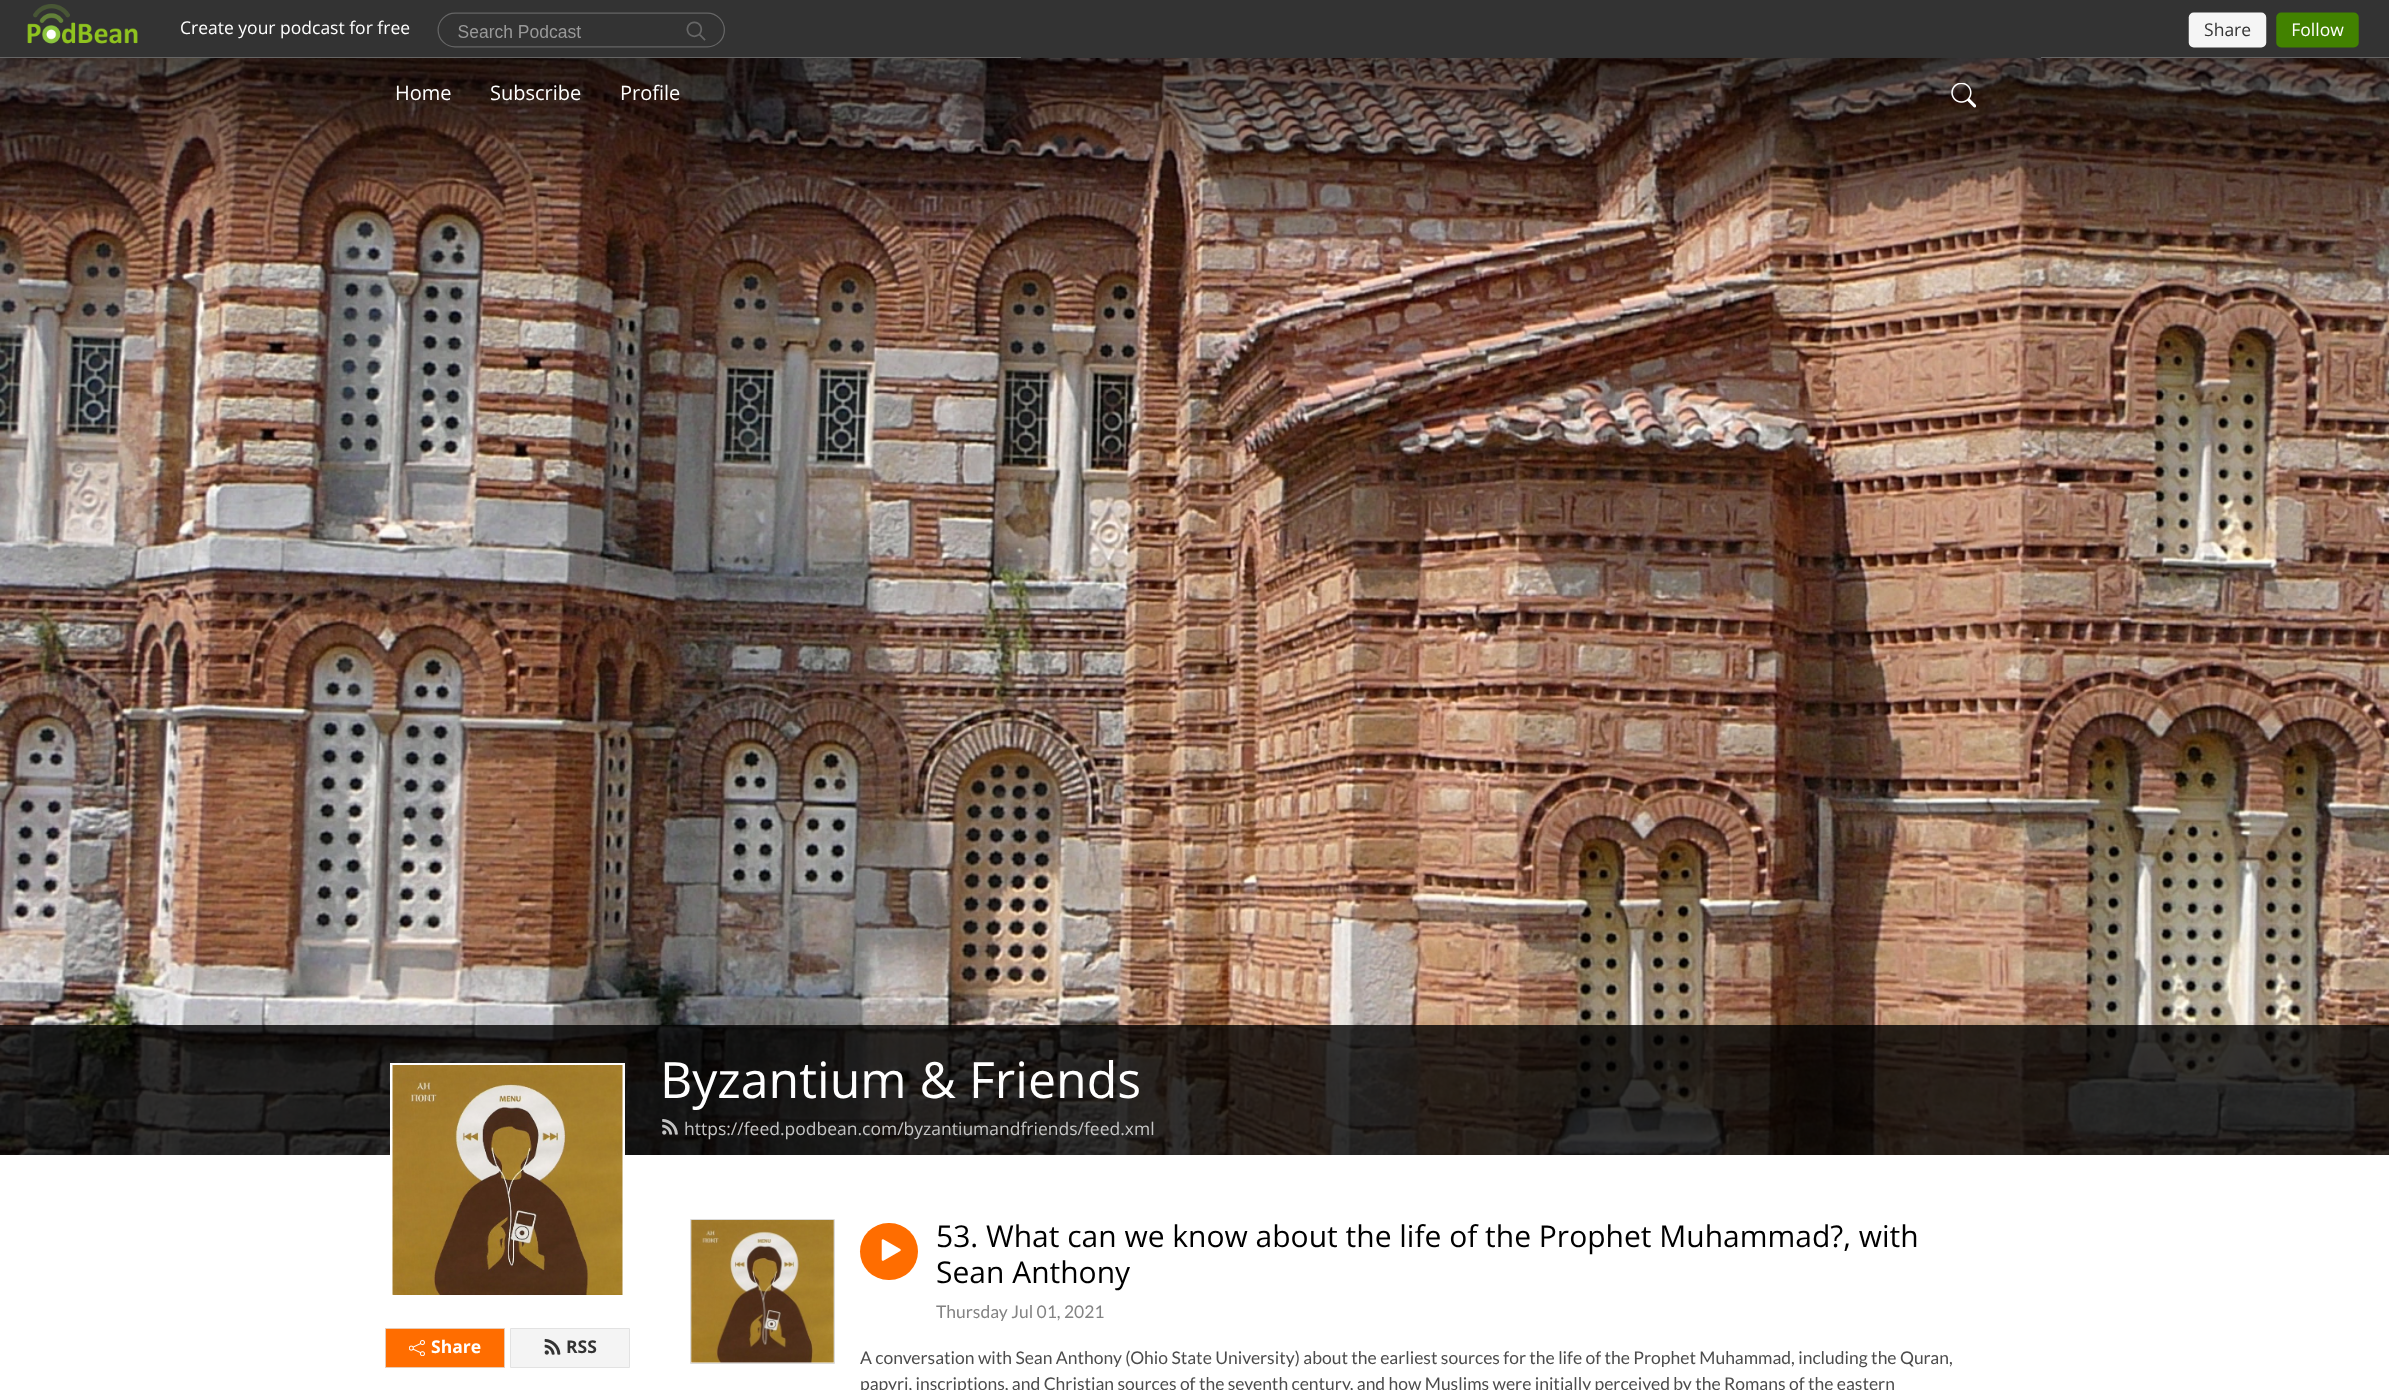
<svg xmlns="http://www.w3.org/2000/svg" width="2389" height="1390">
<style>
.a{font:20px Open Sans;fill:#fff}
.b{font:50px Open Sans;fill:#fff}
.c{font:17.5px Open Sans;fill:#c6c6c6}
.d{font:bold 17.5px Open Sans;fill:#fff}
.e{font:bold 17.5px Open Sans;fill:#333}
.f{font:30px Open Sans;fill:#000}
.g{font:17.5px Lato;fill:#838383}
.h{font:17.5px Lato;fill:#4c4c4c}
</style>
<rect width="100%" height="100%" fill="#fff"/>
<path fill="#333" d="M0 0h2389v4H0z"/>
<image href="1.png" x="0" y="4" width="2389" height="54"/>
<image href="3.png" x="0" y="58" width="2389" height="1097"/>
<image href="2.png" x="1951" y="83" width="25" height="25"/>
<path fill="#000000cc" d="M0 1025h2389v130H0z"/>
<image href="4.png" x="662" y="1119" width="16" height="16"/>
<path fill="none" stroke="#fff" stroke-width="3" d="M391.5 1064.5h232v232H391.5z"/>
<image href="5.png" x="392" y="1065" width="231" height="230"/>
<path fill="#ff6d00" stroke="#e8cbb5" d="M385.5 1328.5h119v39H385.5z"/>
<image href="6.png" x="409" y="1340" width="16" height="16"/>
<path fill="#f4f4f4" stroke="#e2e2e2" d="M510.5 1328.5h119v39H510.5z"/>
<image href="7.png" x="544" y="1338" width="17" height="17"/>
<path fill="none" stroke="#dadada" d="M690.5 1219.5h144v144H690.5z"/>
<image href="8.png" x="691" y="1220" width="143" height="143"/>
<rect fill="#ff6d00" x="860" y="1223" width="58" height="57" rx="28.5"/>
<image href="9.png" x="881" y="1239" width="20" height="22"/>
<text class="a" x="395" y="100">Home</text>
<text class="a" x="490" y="100">Subscribe</text>
<text class="a" x="620" y="100">Profile</text>
<text class="b" x="660" y="1098">Byzantium &amp; Friends</text>
<text class="c" x="684" y="1135">https://feed.podbean.com/byzantiumandfriends/feed.xml</text>
<text class="d" x="431" y="1353">Share</text>
<text class="e" x="566" y="1353">RSS</text>
<text class="f" x="936" y="1247">53. What can we know about the life of the Prophet Muhammad?, with</text>
<text class="f" x="936" y="1283">Sean Anthony</text>
<text class="g" x="936" y="1318">Thursday Jul 01, 2021</text>
<text class="h" x="860" y="1364">A conversation with Sean Anthony (Ohio State University) about the earliest sources for the life of the Prophet Muhammad, including the Quran,</text>
<text class="h" x="860" y="1390">papyri, inscriptions, and Christian sources of the seventh century, and how Muslims were initially perceived by the Romans of the eastern</text>
</svg>
